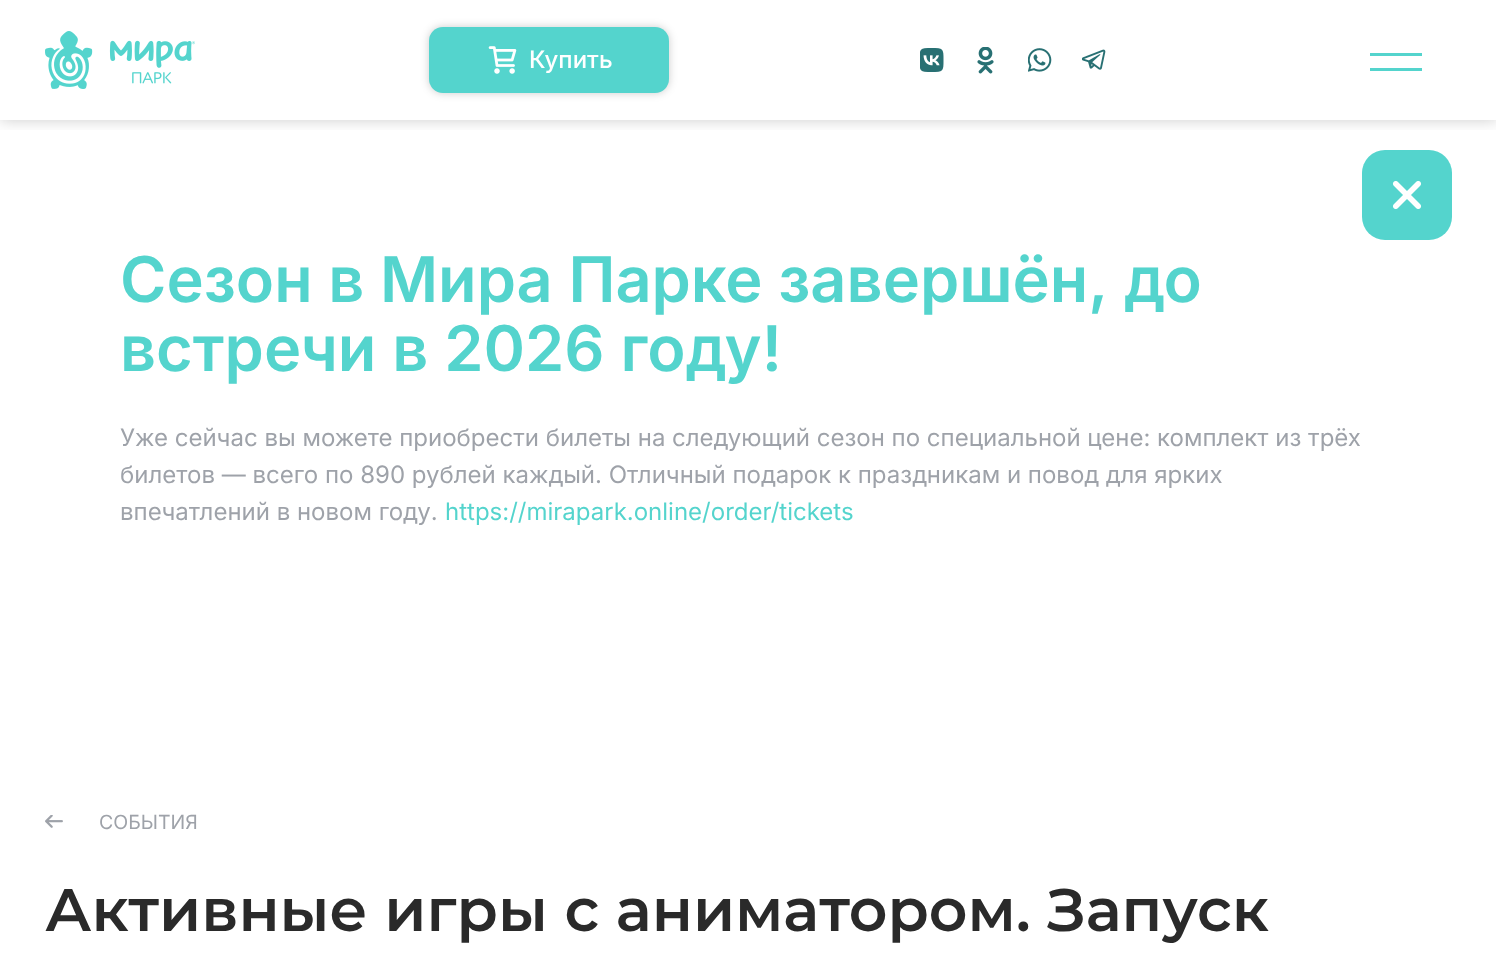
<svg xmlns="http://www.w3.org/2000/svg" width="1496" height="957">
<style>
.a{font:500 24px Inter;fill:#fff}
.b{font:19.5px Inter;fill:#9ea2a9}
.c{font:600 60px Montserrat;fill:#2a2a2a}
.d{font:600 63px Inter;fill:#54d4cd}
.e{font:24px Inter;fill:#9ea2a9}
.f{font:24px Inter;fill:#54d4cd}
</style>
<defs>
<clipPath id="clip1"><path d="M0 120h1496v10H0z"/></clipPath>
</defs>
<rect width="100%" height="100%" fill="#fff"/>
<g clip-path="url(#clip1)">
<path fill="#00000033" filter="blur(7.5px)" d="M0 0h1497v120H0z"/>
</g>
<image href="1.png" x="45" y="31" width="150" height="58"/>
<rect fill="#00000033" filter="blur(4px)" x="429" y="27" width="240" height="66" rx="14"/>
<rect fill="#54d4cd" x="429" y="27" width="240" height="66" rx="14"/>
<image href="2.png" x="488" y="46" width="29" height="28"/>
<image href="3.png" x="920" y="48" width="24" height="24"/>
<image href="4.png" x="977" y="47" width="17" height="27"/>
<image href="5.png" x="1028" y="48" width="24" height="24"/>
<image href="6.png" x="1082" y="49" width="24" height="21"/>
<path fill="#54d4cd" d="M1370 53h52v3H1370z"/>
<path fill="#54d4cd" d="M1370 68h52v3H1370z"/>
<rect fill="#54d4cd" x="1362" y="150" width="90" height="90" rx="23"/>
<image href="7.png" x="1392" y="180" width="30" height="30"/>
<image href="8.png" x="45" y="815" width="18" height="13"/>
<text class="a" x="529" y="68">Купить</text>
<text class="b" x="99" y="829">СОБЫТИЯ</text>
<text class="c" x="45" y="931">Активные игры с аниматором. Запуск</text>
<text class="d" x="120" y="302" word-spacing="-0.25">Сезон в Мира Парке завершён, до</text>
<text class="d" x="120" y="371">встречи в 2026 году!</text>
<text class="e" x="120" y="446">Уже сейчас вы можете приобрести билеты на следующий сезон по специальной цене: комплект из трёх</text>
<text class="e" x="120" y="483">билетов — всего по 890 рублей каждый. Отличный подарок к праздникам и повод для ярких</text>
<text class="e" x="120" y="520">впечатлений в новом году.</text>
<text class="f" x="445" y="520">https://mirapark.online/order/tickets</text>
</svg>
